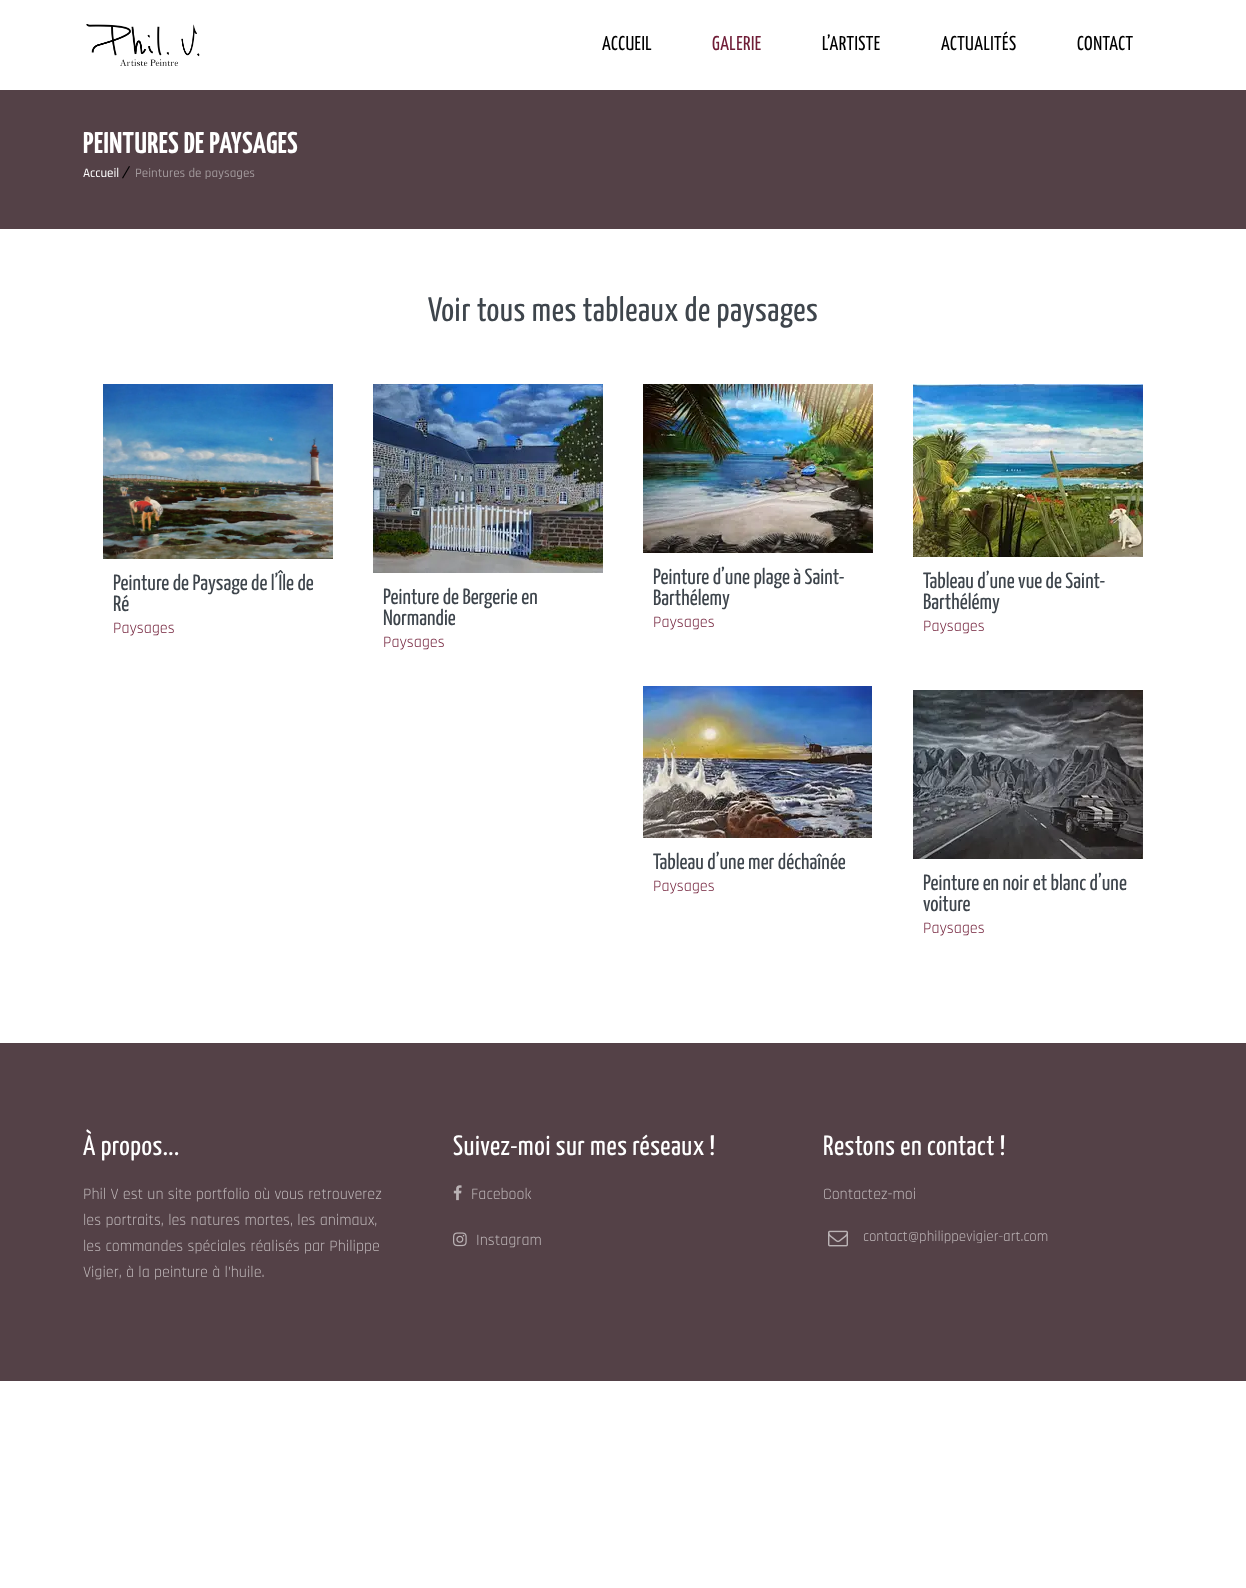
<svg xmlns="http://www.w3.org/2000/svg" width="1246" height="1588">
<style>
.a{font:20px Yanone Kaffeesatz;letter-spacing:0.5px;fill:#000}
.b{font:20px Yanone Kaffeesatz;letter-spacing:0.5px;fill:#6f1c36}
.c{font:bold 30px Yanone Kaffeesatz;letter-spacing:0.5px;fill:#fff}
.d{font:500 13px Rajdhani;fill:#fff}
.e{font:500 13px Rajdhani;fill:#a1989b}
.f{font:34px Yanone Kaffeesatz;letter-spacing:0.5px;fill:#3e454c}
.g{font:22px Yanone Kaffeesatz;fill:#3e454c}
.h{font:16px Rajdhani;fill:#6f1c36}
.i{font:28px Yanone Kaffeesatz;letter-spacing:0.5px;fill:#fff}
.j{font:16px Rajdhani;fill:#bbb3b5}
.k{font:15px Rajdhani;fill:#bbb3b5}
</style>
<rect width="100%" height="100%" fill="#fff"/>
<image href="1.png" x="86" y="24" width="114" height="42"/>
<path fill="#544147" d="M0 90h1246v139H0z"/>
<path fill="#000" d="M129 166l1 .5l-7 12l-1-.5z"/>
<image href="2.png" x="103" y="384" width="230" height="175"/>
<image href="3.png" x="373" y="384" width="230" height="189"/>
<image href="4.png" x="643" y="384" width="230" height="169"/>
<image href="5.png" x="913" y="384" width="230" height="173"/>
<image href="6.png" x="643" y="686" width="229" height="152"/>
<image href="7.png" x="913" y="690" width="230" height="169"/>
<path fill="#544147" d="M0 1043h1246v338H0z"/>
<image href="8.png" x="453" y="1185" width="9" height="16"/>
<image href="9.png" x="453" y="1232" width="14" height="15"/>
<image href="10.png" x="828" y="1230" width="20" height="17"/>
<text class="a" x="602" y="50">ACCUEIL</text>
<text class="b" x="712" y="50">GALERIE</text>
<text class="a" x="822" y="50">L’ARTISTE</text>
<text class="a" x="941" y="50">ACTUALITÉS</text>
<text class="a" x="1077" y="50">CONTACT</text>
<text class="c" x="83" y="153">PEINTURES DE PAYSAGES</text>
<text class="d" x="83" y="177">Accueil</text>
<text class="e" x="135" y="177">Peintures de paysages</text>
<text class="f" x="428" y="321">Voir tous mes tableaux de paysages</text>
<text class="g" x="113" y="590">Peinture de Paysage de l’Île de</text>
<text class="g" x="113" y="611">Ré</text>
<text class="h" x="113" y="633">Paysages</text>
<text class="g" x="383" y="604">Peinture de Bergerie en</text>
<text class="g" x="383" y="625">Normandie</text>
<text class="h" x="383" y="647">Paysages</text>
<text class="g" x="653" y="584">Peinture d’une plage à Saint-</text>
<text class="g" x="653" y="605">Barthélemy</text>
<text class="h" x="653" y="627">Paysages</text>
<text class="g" x="923" y="588">Tableau d’une vue de Saint-</text>
<text class="g" x="923" y="609">Barthélémy</text>
<text class="h" x="923" y="631">Paysages</text>
<text class="g" x="653" y="869">Tableau d’une mer déchaînée</text>
<text class="h" x="653" y="891">Paysages</text>
<text class="g" x="923" y="890">Peinture en noir et blanc d’une</text>
<text class="g" x="923" y="911">voiture</text>
<text class="h" x="923" y="933">Paysages</text>
<text class="i" x="83" y="1155">À propos...</text>
<text class="j" x="83" y="1199">Phil V est un site portfolio où vous retrouverez</text>
<text class="j" x="83" y="1225">les portraits, les natures mortes, les animaux,</text>
<text class="j" x="83" y="1251">les commandes spéciales réalisés par Philippe</text>
<text class="j" x="83" y="1277">Vigier, à la peinture à l’huile.</text>
<text class="i" x="453" y="1155">Suivez-moi sur mes réseaux !</text>
<text class="j" x="471" y="1199">Facebook</text>
<text class="j" x="476" y="1245">Instagram</text>
<text class="i" x="823" y="1155">Restons en contact !</text>
<text class="j" x="823" y="1199">Contactez-moi</text>
<text class="k" x="863" y="1241">contact@philippevigier-art.com</text>
</svg>
